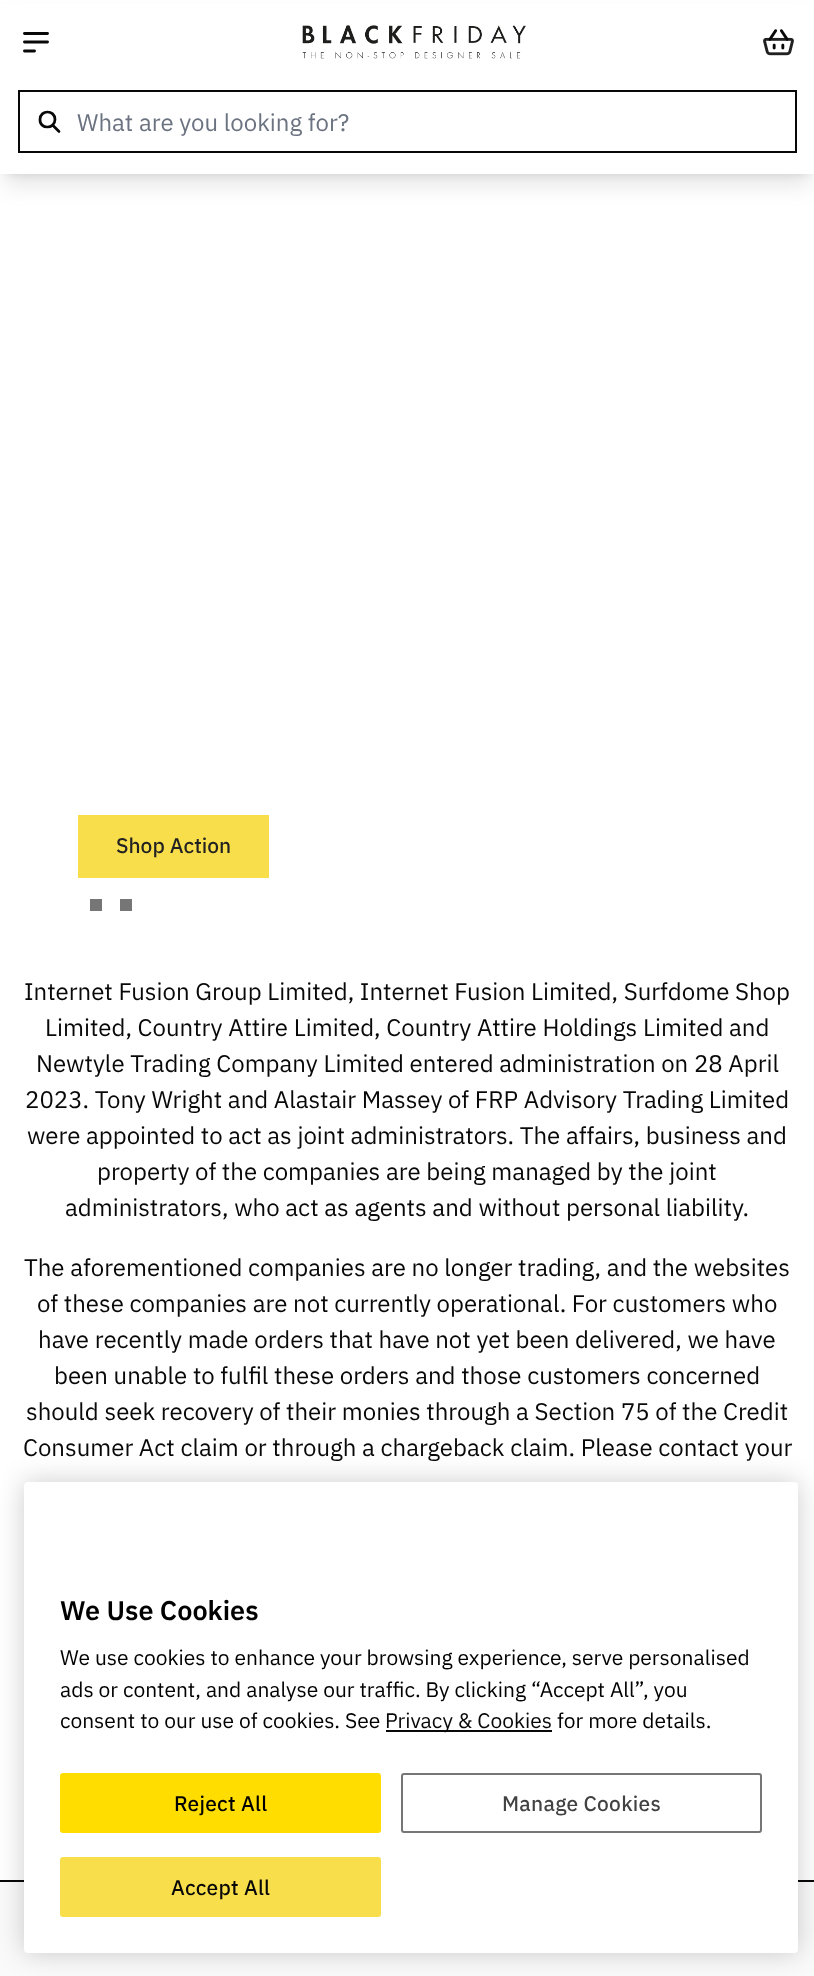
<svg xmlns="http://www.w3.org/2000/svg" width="814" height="1976">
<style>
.a{font:24px Anuphan;fill:#6b7280}
.b{font:500 21px Anuphan;fill:#212121}
.c{font:24px Anuphan;fill:#080808}
.d{font:600 27px Anuphan;fill:#000}
.e{font:21px Anuphan;fill:#000}
.f{font:21px Anuphan;fill:#080808}
.g{font:500 21px Anuphan;letter-spacing:0.25px;fill:#000}
.h{font:500 21px Anuphan;letter-spacing:0.25px;fill:#080808}
.i{font:500 21px Anuphan;letter-spacing:0.25px;fill:#424242}
</style>
<rect width="100%" height="100%" fill="#fff"/>
<path fill="#0000001a" filter="blur(4.5px)" d="M6 12h803v162H6z"/>
<path fill="#0000001a" filter="blur(11px)" d="M5 20h805v165H5z"/>
<path fill="#fff" d="M0 4h814v170H0z"/>
<path fill="none" stroke="#080808" stroke-width="2.9" stroke-linecap="round" stroke-linejoin="round" d="M24.5 51h10m-10-17.5h23zm0 8.5h23z"/>
<image href="1.png" x="302" y="25" width="224" height="34"/>
<image href="2.png" x="763" y="29" width="31" height="27"/>
<path fill="none" stroke="#080808" stroke-width="2" d="M19 91h777v61H19z"/>
<path fill="none" stroke="#080808" stroke-width="2.7" stroke-linecap="round" stroke-linejoin="round" d="M59 131.5l-6.5-6.5m2.5-5.5c0 10-15.5 10-15 0c0-10 15-10 15 0z"/>
<path fill="#f9de4b" d="M78 815h191v63H78z"/>
<path fill="#767676" d="M90 899h12v12H90z"/>
<path fill="#767676" d="M120 899h12v12H120z"/>
<path fill="#fafafa" d="M0 1882h814v94H0z"/>
<path fill="#080808" d="M0 1880h814v2H0z"/>
<rect fill="#00000033" filter="blur(13.5px)" x="24" y="1482" width="774" height="471" rx="4"/>
<rect fill="#fff" x="24" y="1482" width="774" height="471" rx="4"/>
<path fill="#080808" d="M386 1730h166v2H386z"/>
<rect fill="#fd0" stroke="#fd0" stroke-width="2" x="61" y="1774" width="319" height="58" rx="2"/>
<rect fill="#f9de4b" stroke="#f9de4b" stroke-width="2" x="61" y="1858" width="319" height="58" rx="2"/>
<rect fill="none" stroke="#767676" stroke-width="2" x="402" y="1774" width="359" height="58" rx="2"/>
<text class="a" x="77" y="131">What are you looking for?</text>
<text class="b" x="116" y="853">Shop Action</text>
<text class="c" x="24" y="1000">Internet Fusion Group Limited, Internet Fusion Limited, Surfdome Shop</text>
<text class="c" x="45" y="1036">Limited, Country Attire Limited, Country Attire Holdings Limited and</text>
<text class="c" x="36" y="1072">Newtyle Trading Company Limited entered administration on 28 April</text>
<text class="c" x="25" y="1108">2023. Tony Wright and Alastair Massey of FRP Advisory Trading Limited</text>
<text class="c" x="27" y="1144">were appointed to act as joint administrators. The affairs, business and</text>
<text class="c" x="97" y="1180">property of the companies are being managed by the joint</text>
<text class="c" x="65" y="1216">administrators, who act as agents and without personal liability.</text>
<text class="c" x="24" y="1276">The aforementioned companies are no longer trading, and the websites</text>
<text class="c" x="37" y="1312">of these companies are not currently operational. For customers who</text>
<text class="c" x="38" y="1348">have recently made orders that have not yet been delivered, we have</text>
<text class="c" x="54" y="1384">been unable to fulfil these orders and those customers concerned</text>
<text class="c" x="26" y="1420">should seek recovery of their monies through a Section 75 of the Credit</text>
<text class="c" x="23" y="1456">Consumer Act claim or through a chargeback claim. Please contact your</text>
<text class="d" x="60" y="1620">We Use Cookies</text>
<text class="e" x="60" y="1665">We use cookies to enhance your browsing experience, serve personalised</text>
<text class="e" x="60" y="1697">ads or content, and analyse our traffic. By clicking “Accept All”, you</text>
<text class="e" x="60" y="1728">consent to our use of cookies. See</text>
<text class="f" x="385" y="1728">Privacy &amp; Cookies</text>
<text class="e" x="557" y="1728">for more details.</text>
<text class="g" x="174" y="1811">Reject All</text>
<text class="h" x="171" y="1895">Accept All</text>
<text class="i" x="502" y="1811">Manage Cookies</text>
</svg>
